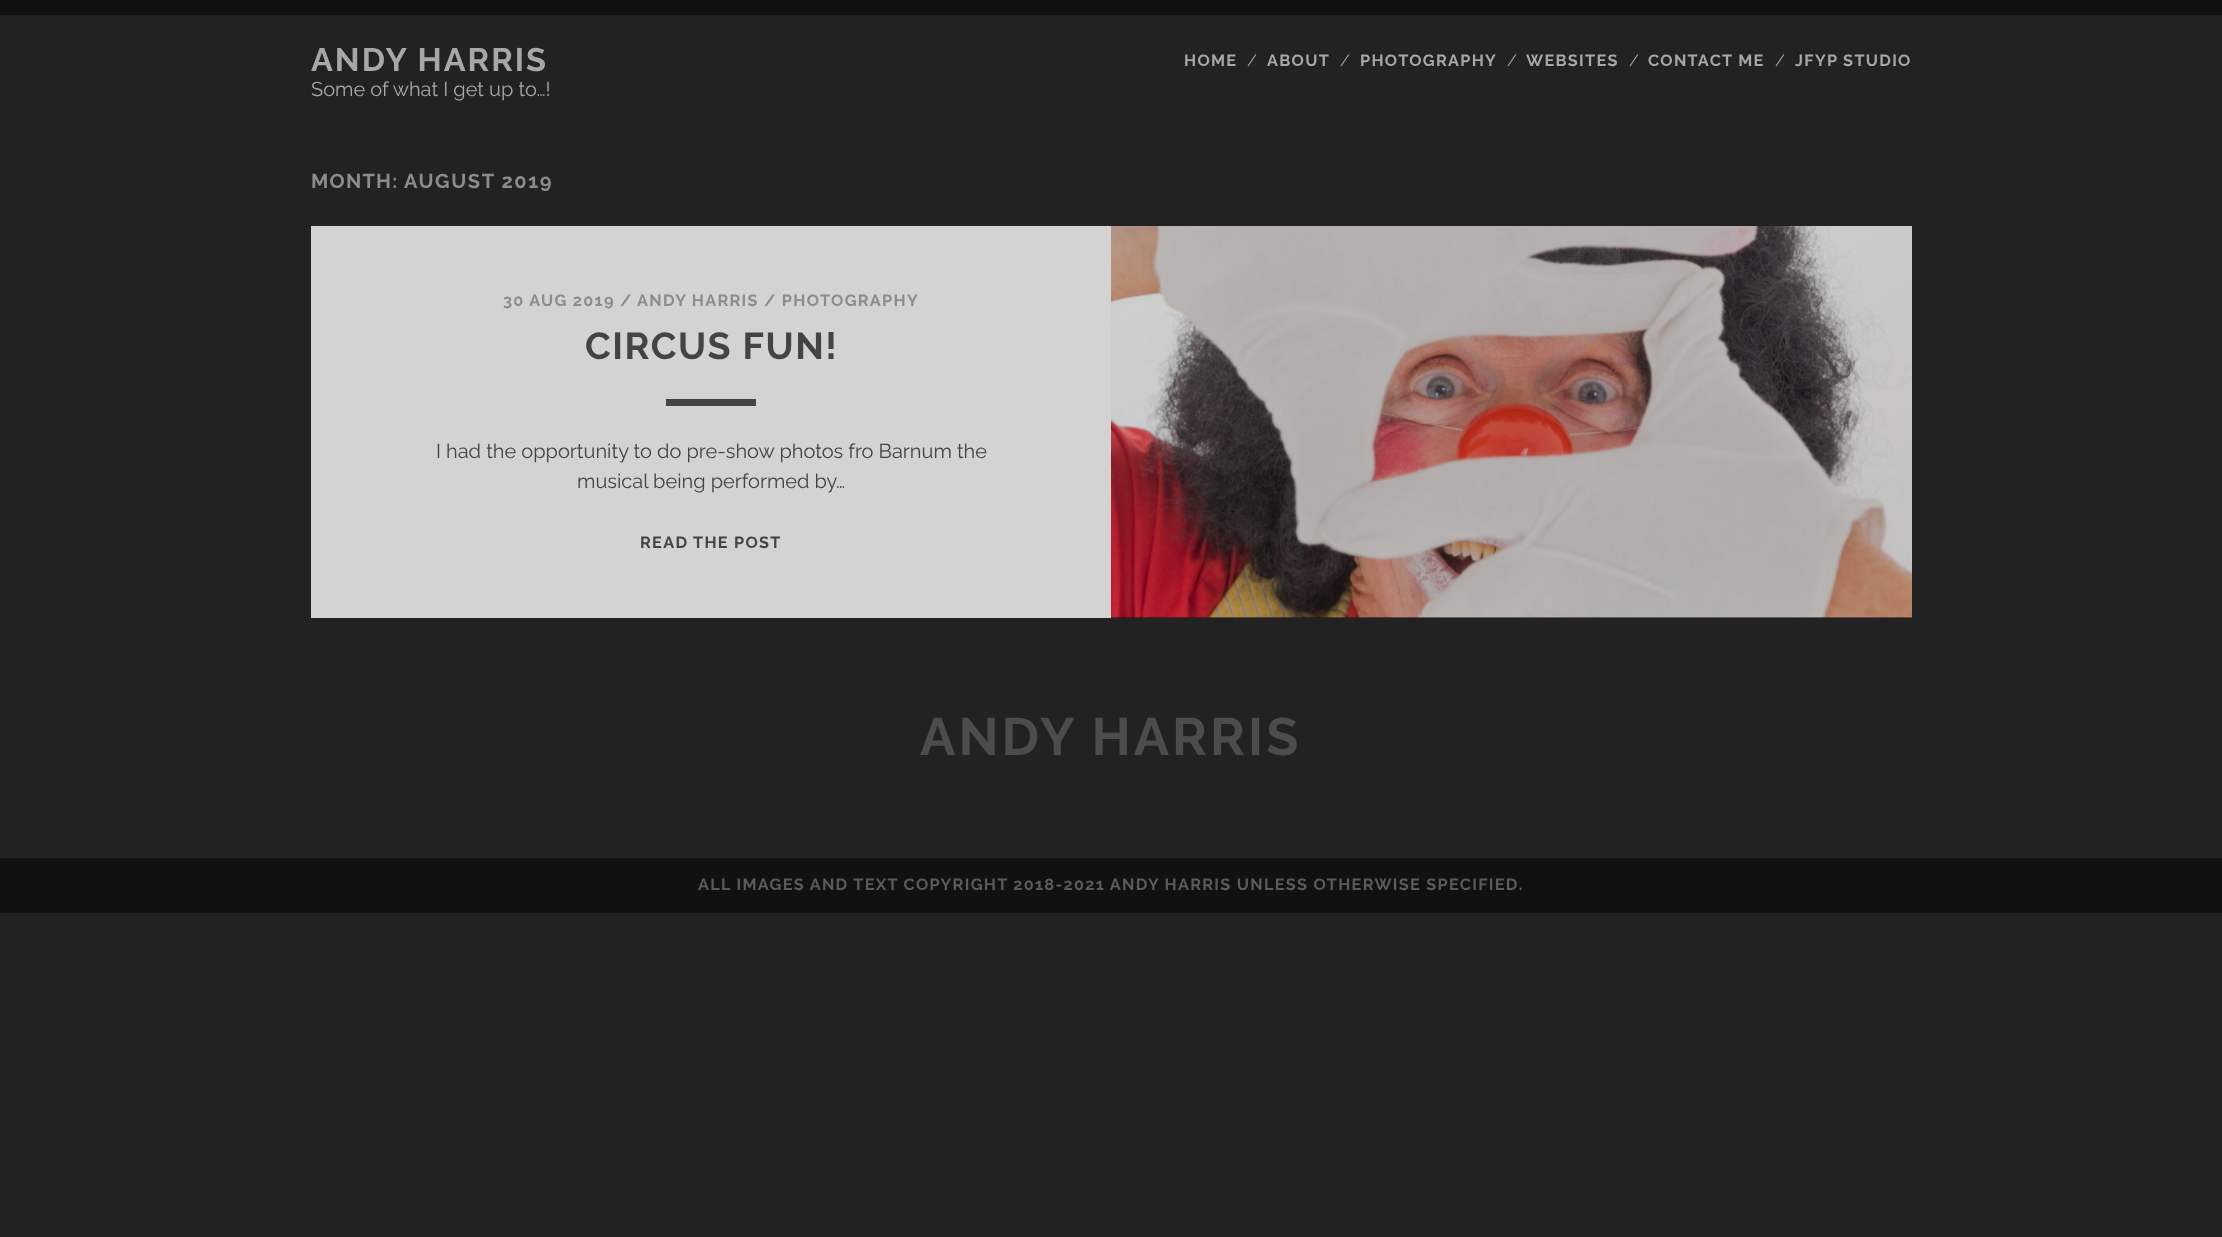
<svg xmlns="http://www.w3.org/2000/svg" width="2222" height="1237">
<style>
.a{font:bold 32.5px Raleway;letter-spacing:2px;fill:#a7a7a7}
.b{font:bold 16.25px Raleway;letter-spacing:1.3px;fill:#a7a7a7}
.c{font:16.25px Raleway;fill:#a7a7a7}
.d{font:20px Raleway;fill:#a7a7a7}
.e{font:bold 20px Raleway;letter-spacing:1.25px;fill:#8c8c8c}
.f{font:bold 20px Raleway;letter-spacing:1.6px;fill:#8c8c8c}
.g{font:bold 16.25px Raleway;letter-spacing:1.3px;fill:#8c8c8c}
.h{font:bold 37.5px Raleway;letter-spacing:1.5px;fill:#444}
.i{font:20px Raleway;fill:#444}
.j{font:bold 16.25px Raleway;letter-spacing:1.3px;fill:#444}
.k{font:bold 52.5px Raleway;letter-spacing:3.1px;fill:#4c4c4c}
.l{font:bold 16.25px Raleway;letter-spacing:1.3px;fill:#5b5b5b}
</style>
<rect width="100%" height="100%" fill="#222"/>
<path fill="#111" d="M0 0h2222v15H0z"/>
<path fill="#141414" d="M1111 226h800v392H1111z"/>
<path fill="#d3d3d3" d="M311 226h800v392H311z"/>
<path fill="#444" d="M666 399h90v7H666z"/>
<image href="1.png" x="1111" y="226" width="801" height="392"/>
<path fill="#111" d="M0 858h2222v55H0z"/>
<text class="a" x="311" y="71">ANDY HARRIS</text>
<text class="b" x="1184" y="66">HOME</text>
<text class="c" x="1247" y="66">/</text>
<text class="b" x="1267" y="66">ABOUT</text>
<text class="c" x="1340" y="66">/</text>
<text class="b" x="1360" y="66">PHOTOGRAPHY</text>
<text class="c" x="1507" y="66">/</text>
<text class="b" x="1526" y="66">WEBSITES</text>
<text class="c" x="1629" y="66">/</text>
<text class="b" x="1648" y="66">CONTACT ME</text>
<text class="c" x="1775" y="66">/</text>
<text class="b" x="1795" y="66">JFYP STUDIO</text>
<text class="d" x="311" y="96">Some of what I get up to…!</text>
<text class="e" x="311" y="188">MONTH:</text>
<text class="f" x="404" y="188">AUGUST 2019</text>
<text class="g" x="503" y="306">30 AUG 2019 /</text>
<text class="g" x="637" y="306">ANDY HARRIS / PHOTOGRAPHY</text>
<text class="h" x="585" y="359">CIRCUS FUN!</text>
<text class="i" x="436" y="458">I had the opportunity to do pre-show photos fro Barnum the</text>
<text class="i" x="577" y="488">musical being performed by…</text>
<text class="j" x="640" y="548">READ THE POST</text>
<text class="k" x="920" y="755">ANDY HARRIS</text>
<text class="l" x="698" y="890">ALL IMAGES AND TEXT COPYRIGHT 2018-2021 ANDY HARRIS UNLESS OTHERWISE SPECIFIED.</text>
</svg>
